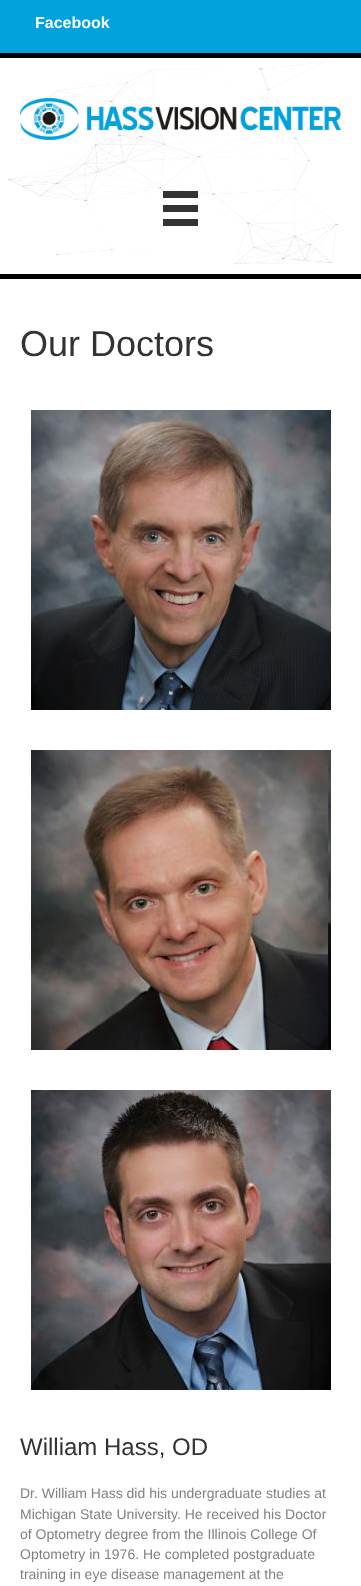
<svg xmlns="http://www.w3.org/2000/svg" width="361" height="1586">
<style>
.a{font:bold 16px Liberation Sans;fill:#fff}
.b{font:36px Liberation Sans;fill:#333}
.c{font:24px Liberation Sans;fill:#333}
.d{font:14px Liberation Sans;fill:#808080}
</style>
<rect width="100%" height="100%" fill="#fff"/>
<path fill="#00a2dd" d="M0 0h361v53H0z"/>
<path fill="#000" d="M0 53h361v5H0z"/>
<path fill="#000" d="M0 274h361v5H0z"/>
<image href="1.png" x="8" y="62" width="330" height="203"/>
<image href="2.png" x="20" y="98" width="321" height="42"/>
<path fill="#333" d="M163 191h35v7H163z"/>
<path fill="#333" d="M163 205h35v7H163z"/>
<path fill="#333" d="M163 219h35v7H163z"/>
<image href="3.png" x="31" y="410" width="300" height="300"/>
<image href="4.png" x="31" y="750" width="300" height="300"/>
<image href="5.png" x="31" y="1090" width="300" height="300"/>
<text class="a" x="35" y="28">Facebook</text>
<text class="b" x="20" y="356">Our Doctors</text>
<text class="c" x="20" y="1455">William Hass, OD</text>
<text class="d" x="20" y="1498">Dr. William Hass did his undergraduate studies at</text>
<text class="d" x="20" y="1519">Michigan State University. He received his Doctor</text>
<text class="d" x="20" y="1539">of Optometry degree from the Illinois College Of</text>
<text class="d" x="20" y="1559">Optometry in 1976. He completed postgraduate</text>
<text class="d" x="20" y="1579">training in eye disease management at the</text>
</svg>
